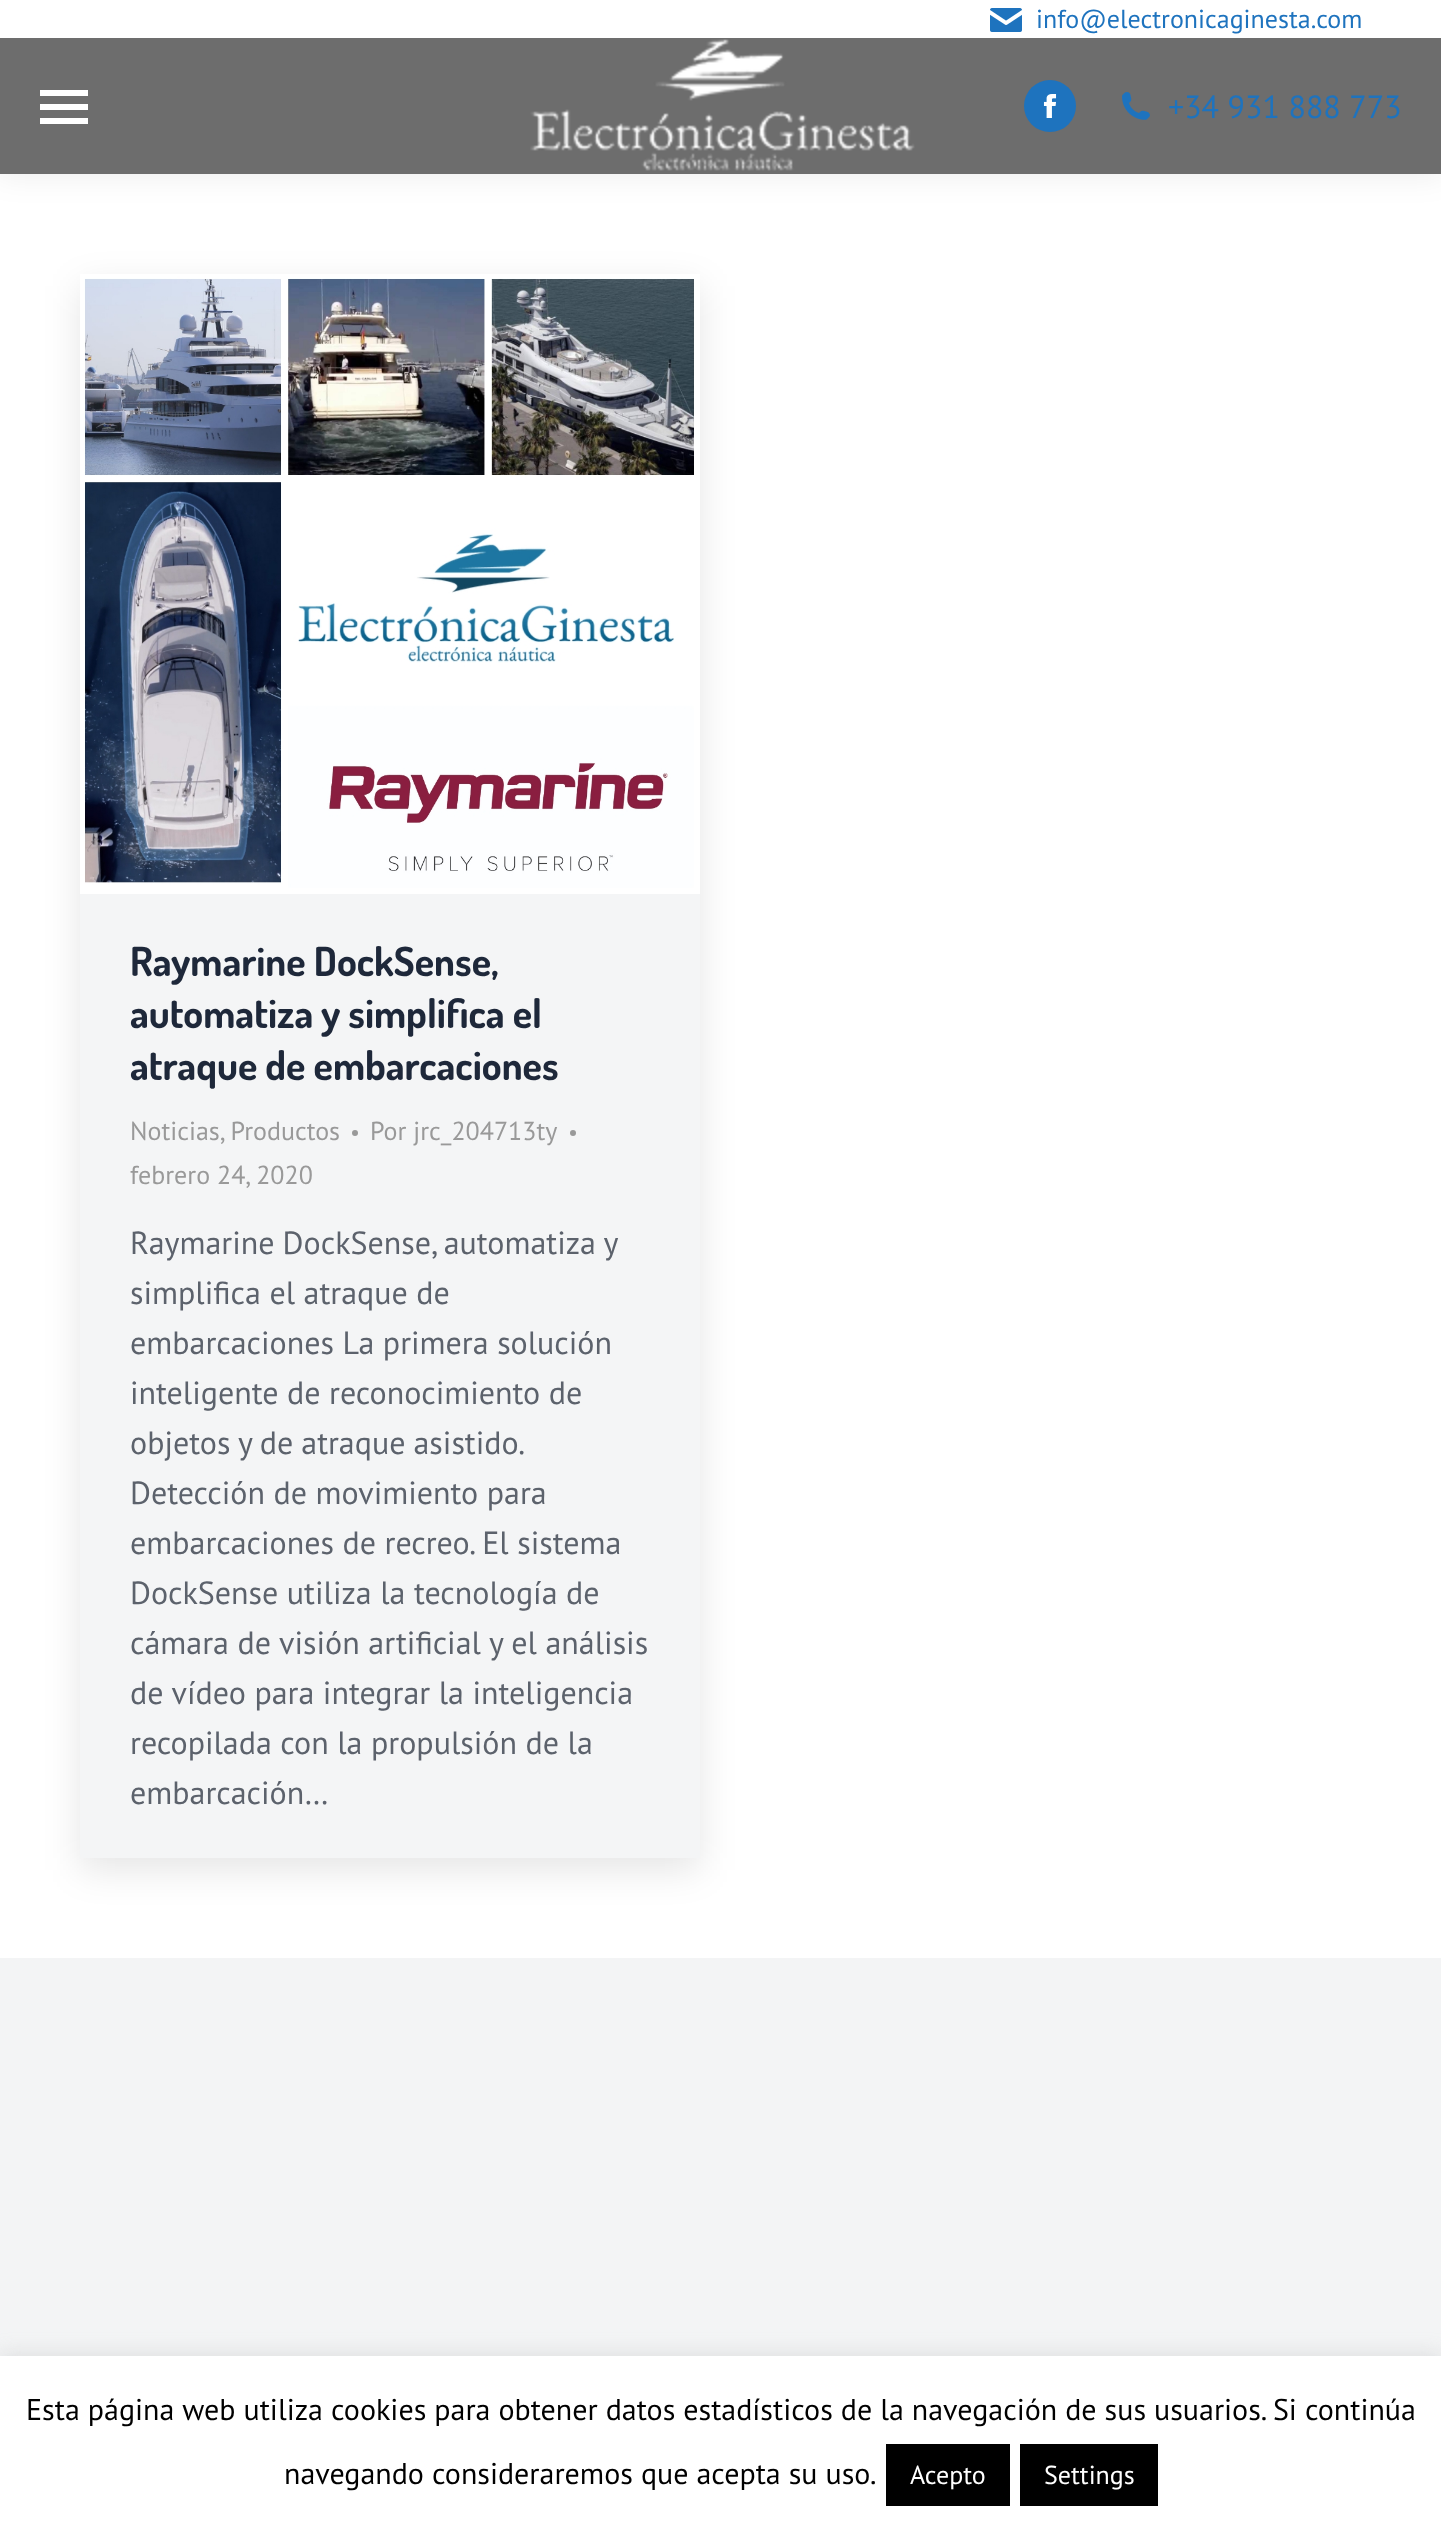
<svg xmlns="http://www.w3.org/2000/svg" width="1441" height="2529">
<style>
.a{font:26px PT Sans;fill:#1e73be}
.b{font:32px PT Sans;fill:#1e73be}
.c{font:bold 40px Dosis;fill:#1e283a}
.d{font:26px PT Sans;fill:#999}
.e{font:32px PT Sans;fill:#5c626c}
.f{font:30px PT Sans;fill:#000}
.g{font:26px PT Sans;fill:#fff}
</style>
<rect width="100%" height="100%" fill="#f3f4f5"/>
<path fill="#fff" d="M0 174h1441v1784H0z"/>
<path fill="#00000012" filter="blur(15px)" d="M-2 -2h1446v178H-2z"/>
<path fill="#6d6d6d" d="M0 38h1441v136H0z"/>
<path fill="#fff" d="M0 0h1441v38H0z"/>
<image href="1.png" x="990" y="8" width="32" height="24"/>
<path fill="#fff" d="M40 90h48v6H40z"/>
<path fill="#fff" d="M40 104h48v6H40z"/>
<path fill="#fff" d="M40 118h48v6H40z"/>
<image href="2.png" x="530" y="39" width="385" height="132"/>
<circle fill="#1e73be" cx="1050" cy="106" r="26"/>
<image href="3.png" x="1043" y="94" width="14" height="24"/>
<image href="4.png" x="1122" y="92" width="28" height="28"/>
<path fill="#0000001a" filter="blur(18px)" d="M80 286h620v1584H80z"/>
<path fill="#f4f5f6" d="M80 894h620v964H80z"/>
<image href="5.png" x="80" y="274" width="620" height="620"/>
<circle fill="#999" cx="355" cy="1133" r="3"/>
<circle fill="#999" cx="573" cy="1133" r="3"/>
<path fill="#acabab4d" filter="blur(10px)" d="M0 2354h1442v174H0z"/>
<path fill="#fff" d="M0 2356h1441v173H0z"/>
<path fill="#000" d="M886 2444h124v62H886z"/>
<path fill="#000" d="M1020 2444h138v62H1020z"/>
<text class="a" x="1036" y="28">info@electronicaginesta.com</text>
<text class="b" x="1168" y="118">+34 931 888 773</text>
<text class="c" x="130" y="976">Raymarine DockSense,</text>
<text class="c" x="130" y="1028">automatiza y simplifica el</text>
<text class="c" x="130" y="1080">atraque de embarcaciones</text>
<text class="d" x="130" y="1140">Noticias, Productos</text>
<text class="d" x="370" y="1140">Por jrc_204713ty</text>
<text class="d" x="130" y="1184">febrero 24, 2020</text>
<text class="e" x="130" y="1254" word-spacing="-0.5">Raymarine DockSense, automatiza y</text>
<text class="e" x="130" y="1304">simplifica el atraque de</text>
<text class="e" x="130" y="1354">embarcaciones La primera solución</text>
<text class="e" x="130" y="1404">inteligente de reconocimiento de</text>
<text class="e" x="130" y="1454" word-spacing="-0.5">objetos y de atraque asistido.</text>
<text class="e" x="130" y="1504">Detección de movimiento para</text>
<text class="e" x="130" y="1554">embarcaciones de recreo. El sistema</text>
<text class="e" x="130" y="1604">DockSense utiliza la tecnología de</text>
<text class="e" x="130" y="1654">cámara de visión artificial y el análisis</text>
<text class="e" x="130" y="1704">de vídeo para integrar la inteligencia</text>
<text class="e" x="130" y="1754">recopilada con la propulsión de la</text>
<text class="e" x="130" y="1804">embarcación…</text>
<text class="f" x="26" y="2420">Esta página web utiliza cookies para obtener datos estadísticos de la navegación de sus usuarios. Si continúa</text>
<text class="f" x="284" y="2484">navegando consideraremos que acepta su uso.</text>
<text class="g" x="910" y="2484">Acepto</text>
<text class="g" x="1044" y="2484">Settings</text>
</svg>
